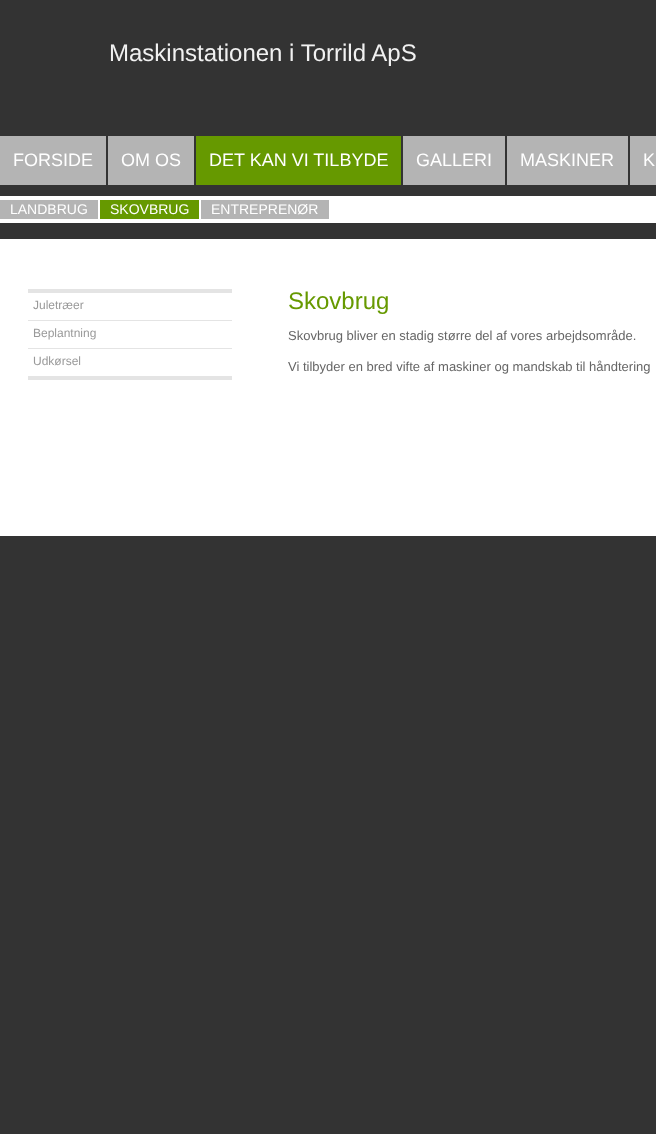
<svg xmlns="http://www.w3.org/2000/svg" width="656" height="1134">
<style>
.a{font:24px Liberation Sans;fill:#f1f1f1}
.b{font:18px Liberation Sans;fill:#fff}
.c{font:14px Liberation Sans;fill:#fff}
.d{font:12px Liberation Sans;fill:#999}
.e{font:24px Liberation Sans;fill:#690}
.f{font:13px Liberation Sans;fill:#666}
</style>
<rect width="100%" height="100%" fill="#333"/>
<path fill="#690" d="M196 136h205v49H196z"/>
<path fill="#fff" d="M0 196h656v27H0z"/>
<path fill="#b4b4b4" d="M0 200h98v19H0z"/>
<path fill="#690" d="M100 200h99v19H100z"/>
<path fill="#b4b4b4" d="M201 200h128v19H201z"/>
<path fill="#b4b4b4" d="M0 136h106v49H0z"/>
<path fill="#b4b4b4" d="M108 136h86v49H108z"/>
<path fill="#b4b4b4" d="M403 136h102v49H403z"/>
<path fill="#b4b4b4" d="M507 136h121v49H507z"/>
<path fill="#b4b4b4" d="M630 136h26v49H630z"/>
<path fill="#fff" d="M0 239h656v297H0z"/>
<path fill="#e4e4e4" d="M28 289h204v4H28z"/>
<path fill="#e4e4e4" d="M28 376h204v4H28z"/>
<path fill="#e4e4e4" d="M28 320h204v1H28z"/>
<path fill="#e4e4e4" d="M28 348h204v1H28z"/>
<text class="a" x="109" y="61">Maskinstationen i Torrild ApS</text>
<text class="b" x="209" y="166">DET KAN VI TILBYDE</text>
<text class="c" x="10" y="214">LANDBRUG</text>
<text class="c" x="110" y="214">SKOVBRUG</text>
<text class="c" x="211" y="214">ENTREPRENØR</text>
<text class="b" x="13" y="166">FORSIDE</text>
<text class="b" x="121" y="166">OM OS</text>
<text class="b" x="416" y="166">GALLERI</text>
<text class="b" x="520" y="166">MASKINER</text>
<text class="b" x="643" y="166">K</text>
<text class="d" x="33" y="309">Juletræer</text>
<text class="d" x="33" y="337">Beplantning</text>
<text class="d" x="33" y="365">Udkørsel</text>
<text class="e" x="288" y="309">Skovbrug</text>
<text class="f" x="288" y="340">Skovbrug bliver en stadig større del af vores arbejdsområde.</text>
<text class="f" x="288" y="371">Vi tilbyder en bred vifte af maskiner og mandskab til håndtering</text>
</svg>
